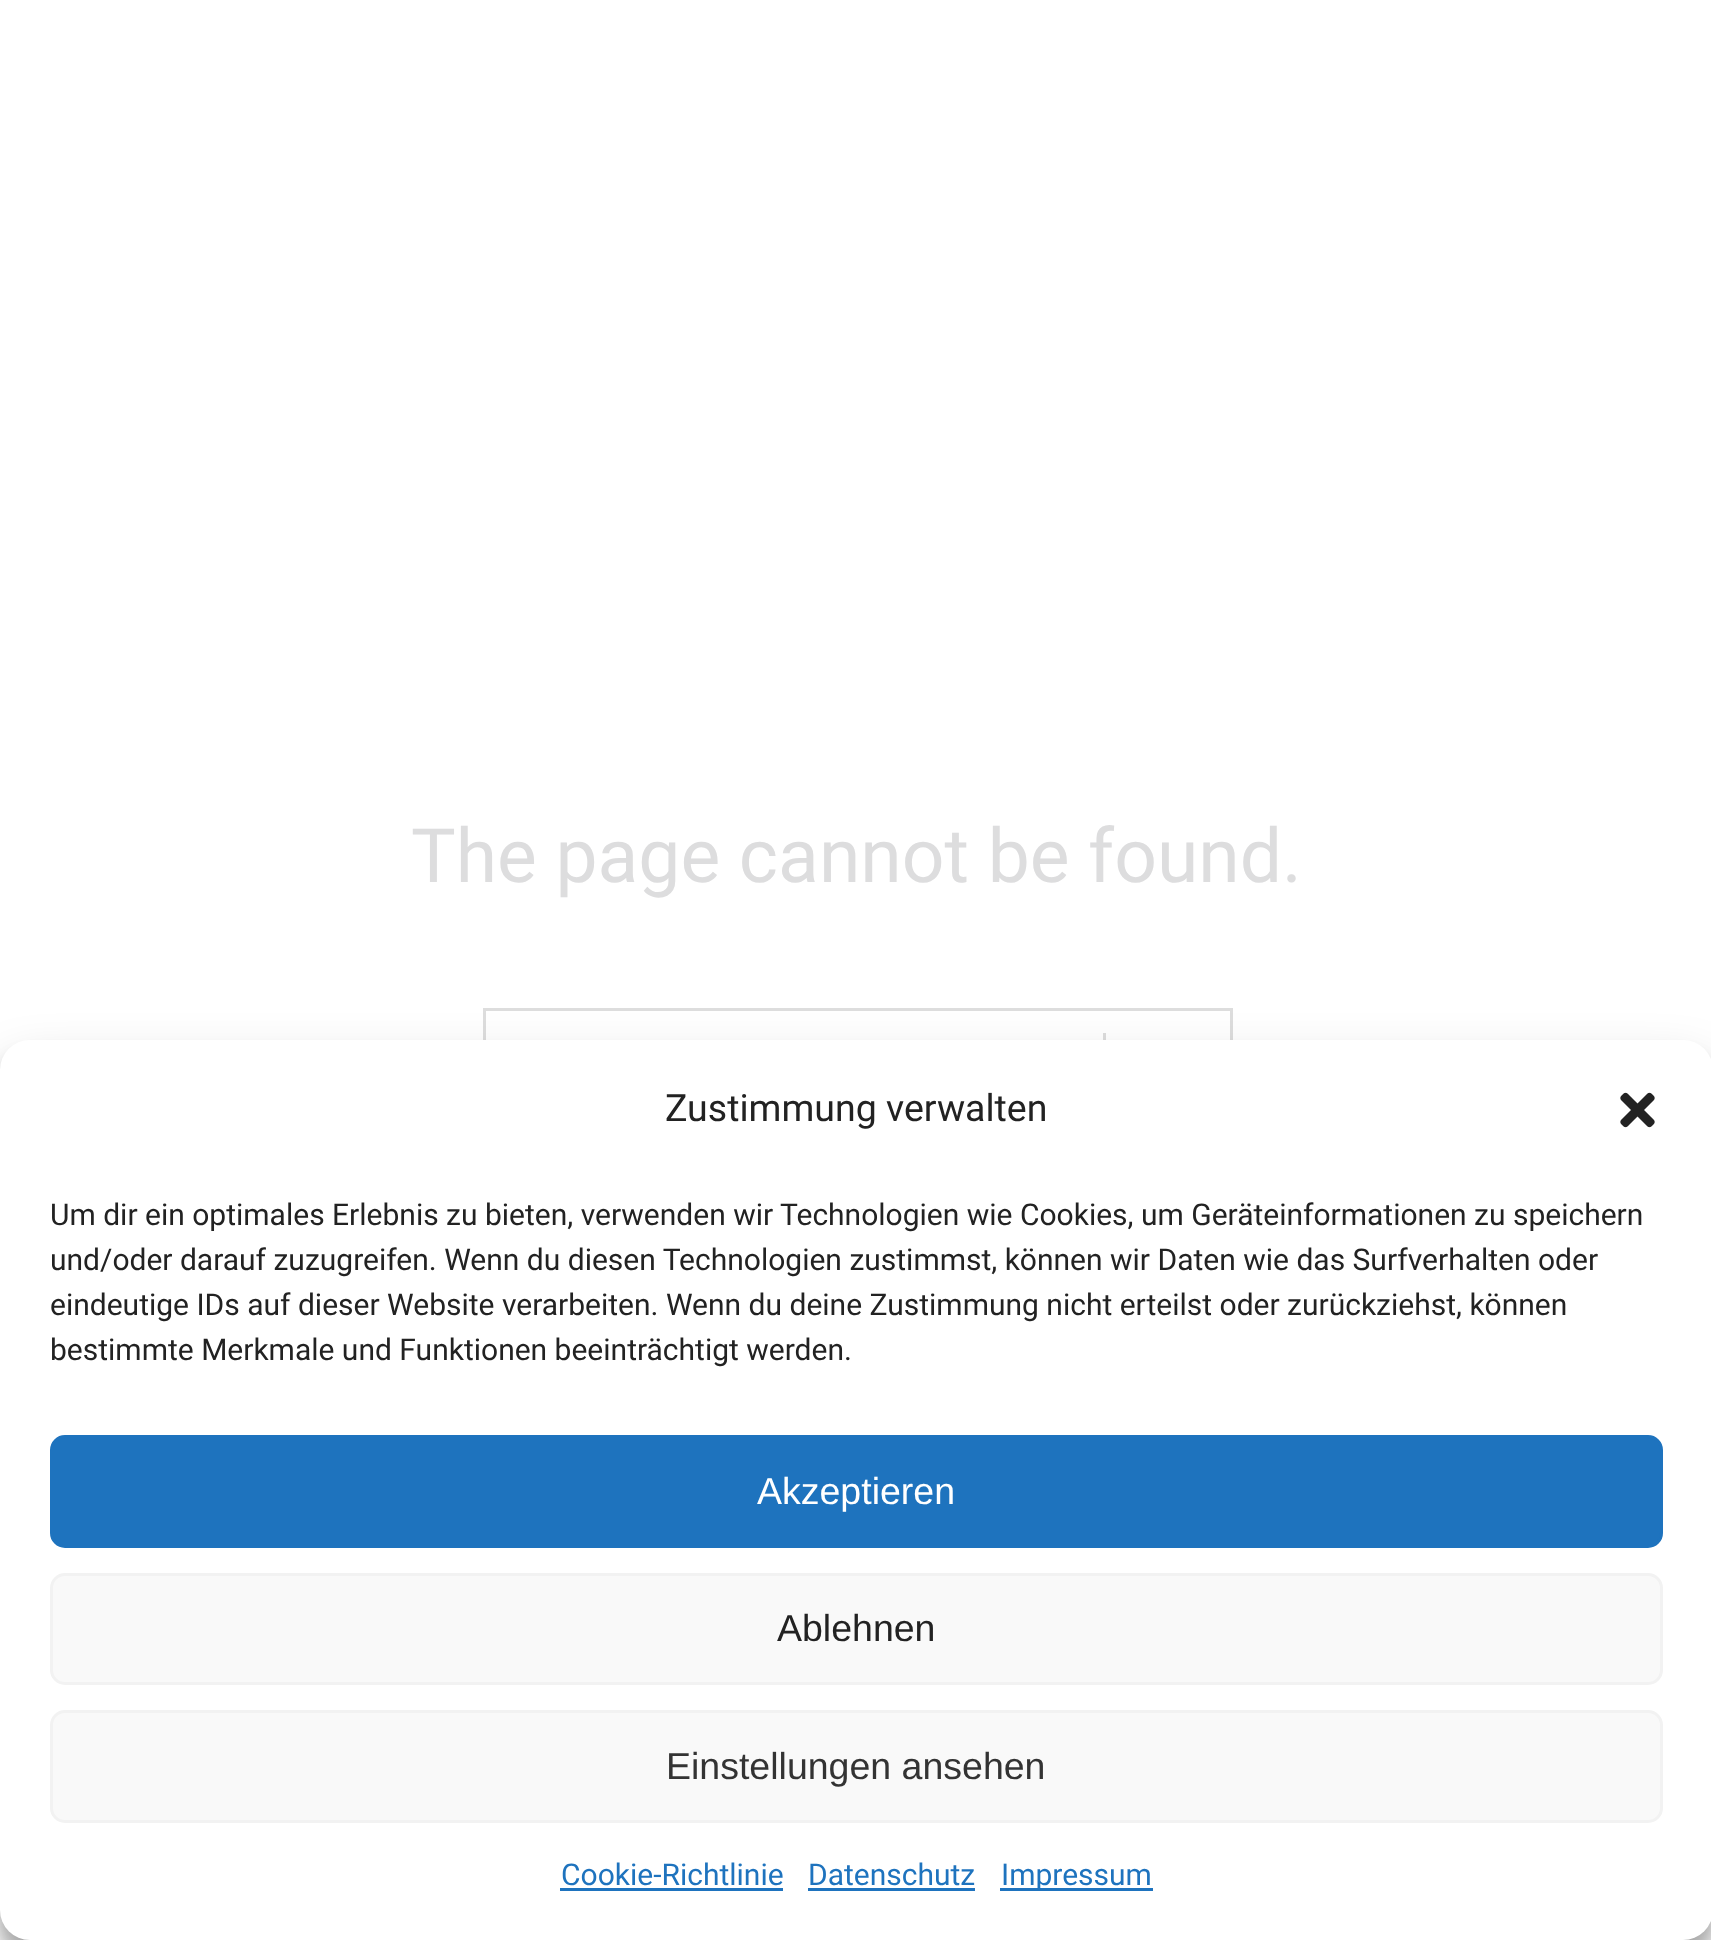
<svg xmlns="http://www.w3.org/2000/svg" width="1711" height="1940">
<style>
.a{font:75px Roboto;fill:#ddddde}
.b{font:37.5px Roboto;fill:#222}
.c{font:30px Roboto;fill:#222}
.d{font:37.5px Liberation Sans;fill:#fff}
.e{font:37.5px Liberation Sans;fill:#222}
.f{font:37.5px Liberation Sans;fill:#333}
.g{font:30px Roboto;fill:#1e73be}
</style>
<rect width="100%" height="100%" fill="#fff"/>
<path fill="none" stroke="#ddd" stroke-width="3" d="M484.5 1009.5h747v102H484.5z"/>
<path fill="#ddd" d="M1103 1033h3v7H1103z"/>
<rect fill="#0000003b" filter="blur(7.5px)" y="1055" width="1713" height="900" rx="30"/>
<rect fill="#00000030" filter="blur(25px)" y="1065" width="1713" height="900" rx="30"/>
<rect fill="#fff" y="1040" width="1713" height="900" rx="30"/>
<image href="1.png" x="1620" y="1092" width="35" height="36"/>
<rect fill="#1e73be" stroke="#1e73be" stroke-width="3" x="51.5" y="1436.5" width="1610" height="110" rx="13.5"/>
<rect fill="#f9f9f9" stroke="#f2f2f2" stroke-width="3" x="51.5" y="1574.5" width="1610" height="109" rx="13.5"/>
<rect fill="#f9f9f9" stroke="#f2f2f2" stroke-width="3" x="51.5" y="1711.5" width="1610" height="110" rx="13.5"/>
<path fill="#1e73be" d="M560 1888h223v3H560z"/>
<path fill="#1e73be" d="M808 1888h167v3H808z"/>
<path fill="#1e73be" d="M1000 1888h153v3H1000z"/>
<text class="a" x="411" y="882">The page cannot be found.</text>
<text class="b" x="665" y="1121">Zustimmung verwalten</text>
<text class="c" x="50" y="1225">Um dir ein optimales Erlebnis zu bieten, verwenden wir Technologien wie Cookies, um Geräteinformationen zu speichern</text>
<text class="c" x="50" y="1270">und/oder darauf zuzugreifen. Wenn du diesen Technologien zustimmst, können wir Daten wie das Surfverhalten oder</text>
<text class="c" x="50" y="1315">eindeutige IDs auf dieser Website verarbeiten. Wenn du deine Zustimmung nicht erteilst oder zurückziehst, können</text>
<text class="c" x="50" y="1360">bestimmte Merkmale und Funktionen beeinträchtigt werden.</text>
<text class="d" x="757" y="1504">Akzeptieren</text>
<text class="e" x="777" y="1641">Ablehnen</text>
<text class="f" x="666" y="1779">Einstellungen ansehen</text>
<text class="g" x="561" y="1885">Cookie-Richtlinie</text>
<text class="g" x="808" y="1885">Datenschutz</text>
<text class="g" x="1001" y="1885">Impressum</text>
</svg>
